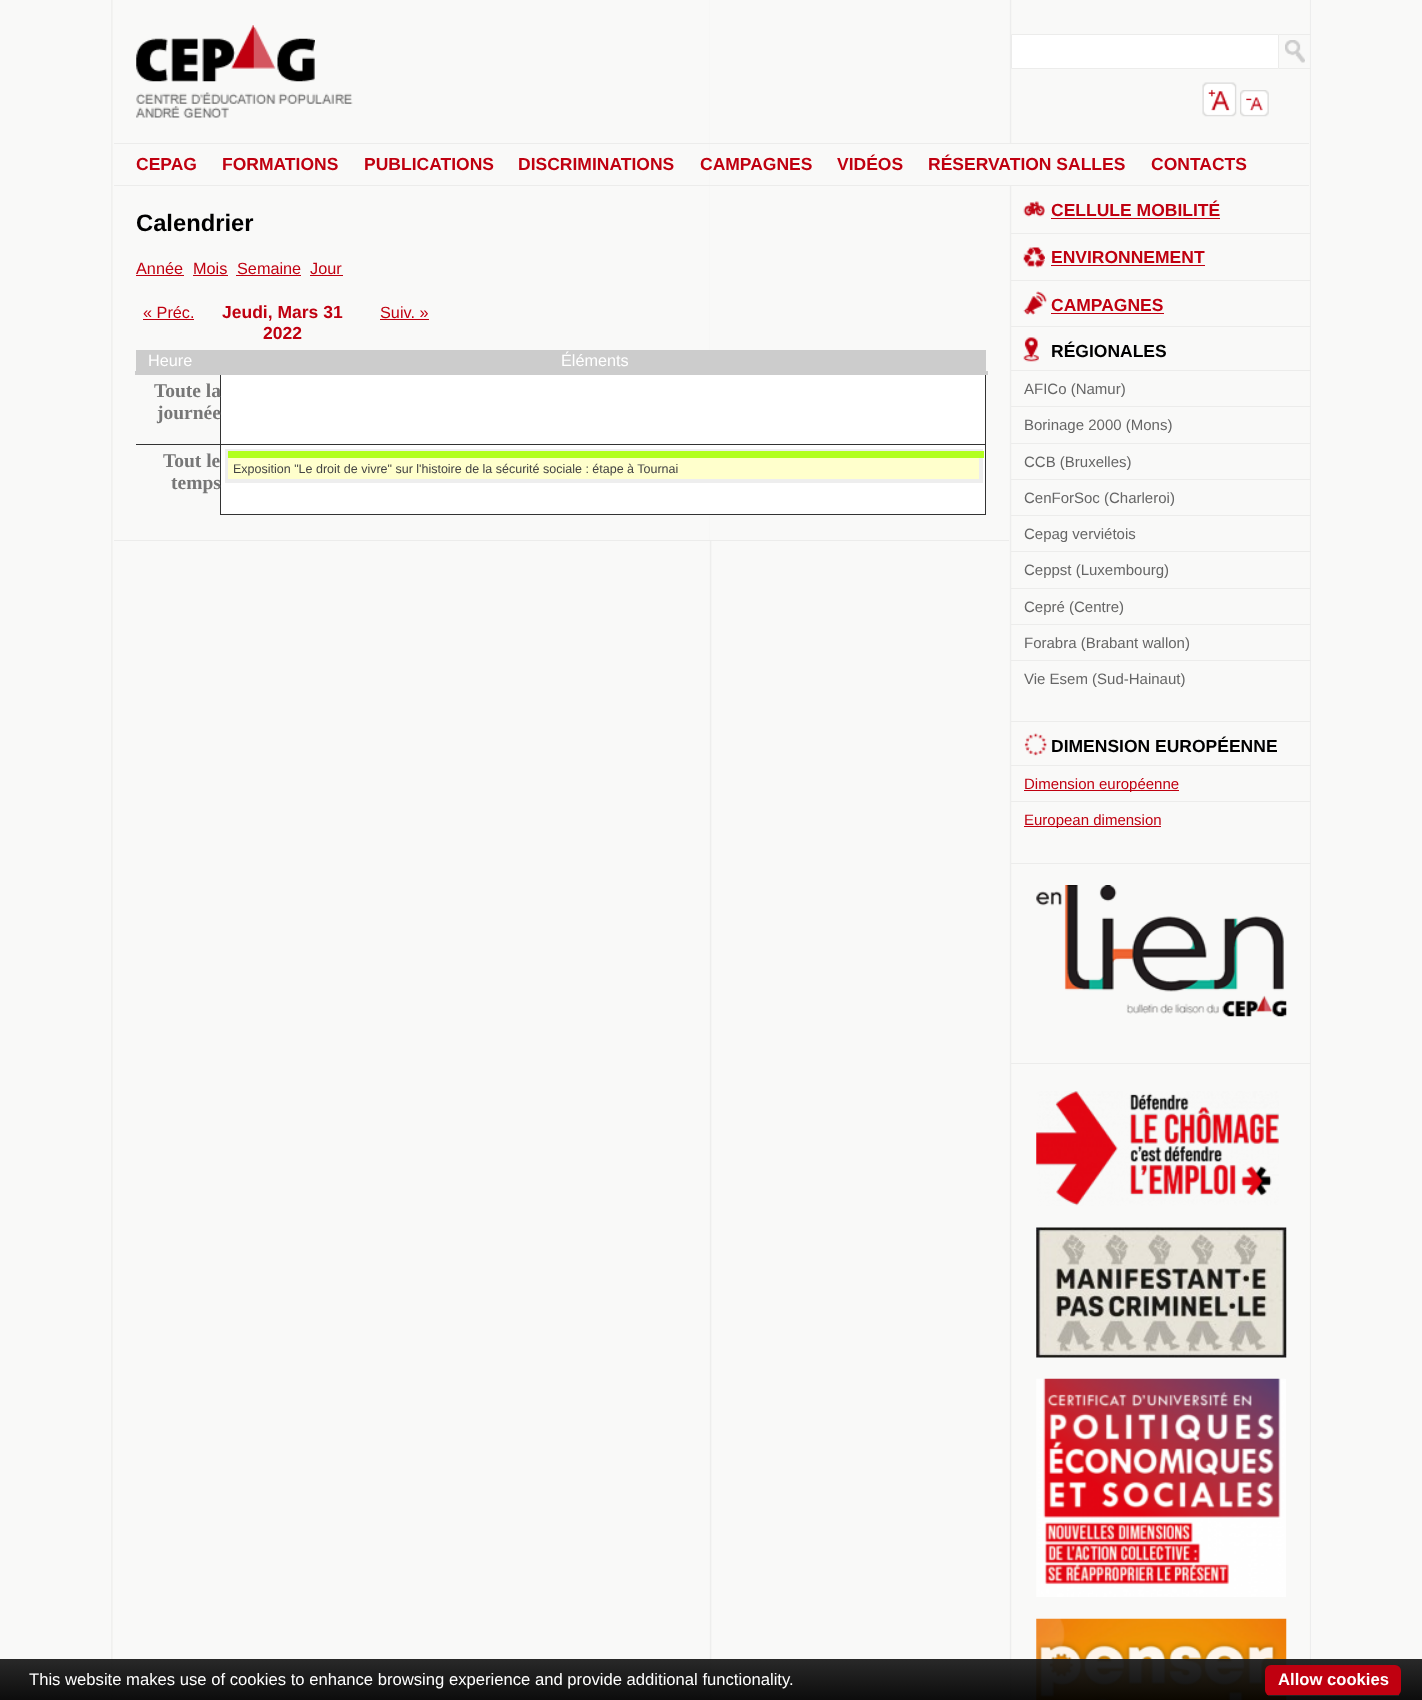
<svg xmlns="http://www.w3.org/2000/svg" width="1422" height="1700">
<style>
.a{font:bold 17.5px Liberation Sans;fill:#c00010}
.b{font:bold 23.75px Liberation Sans;fill:#000}
.c{font:16.25px Liberation Sans;fill:#c00010}
.d{font:16.25px Liberation Sans;fill:#fff}
.e{font:bold 19.5px Liberation Serif;fill:#777}
.f{font:12.5px Liberation Sans;fill:#444}
.g{font:bold 17.5px Liberation Sans;fill:#000}
.h{font:15px Liberation Sans;fill:#666}
.i{font:15px Liberation Sans;fill:#c00010}
.j{font:16.65px Liberation Sans;fill:#fff}
.k{font:bold 16.65px Liberation Sans;fill:#fff}
</style>
<defs>
<linearGradient id="g1" gradientUnits="userSpaceOnUse" x1="715" y1="1659" x2="715" y2="1700"><stop offset="0" stop-color="#1e1e1e" stop-opacity="0.95"/><stop offset="1" stop-color="#000" stop-opacity="0.95"/></linearGradient>
</defs>
<rect width="100%" height="100%" fill="#f9f9f8"/>
<image href="1.png" x="111" y="0" width="1200" height="1700"/>
<path fill="#f9f9f8" d="M710 0h2v143H710z"/>
<image href="2.png" x="136" y="25" width="179" height="57"/>
<image href="3.png" x="136" y="92" width="217" height="26"/>
<path fill="#fff" stroke="#ececeb" d="M1011.5 34.5h267v34H1011.5z"/>
<path fill="#ececeb" d="M1279 34h32v1H1279z"/>
<path fill="#ececeb" d="M1279 68h32v1H1279z"/>
<image href="4.png" x="1285" y="40" width="20" height="23"/>
<image href="5.png" x="1202" y="82" width="35" height="35"/>
<image href="6.png" x="1240" y="90" width="29" height="27"/>
<path fill="#f9f9f8" d="M710 144h302v41H710z"/>
<path fill="#ececeb" d="M114 143h1195v1H114z"/>
<path fill="#ececeb" d="M114 185h1195v1H114z"/>
<path fill="#f9f9f8" d="M710 186h2v354H710z"/>
<path fill="#ececeb" d="M114 540h895v1H114z"/>
<path fill="#c00010" d="M136 275h48v1H136z"/>
<path fill="#c00010" d="M193 275h35v1H193z"/>
<path fill="#c00010" d="M236 275h65v1H236z"/>
<path fill="#c00010" d="M310 275h33v1H310z"/>
<path fill="#c00010" d="M143 319h51v1H143z"/>
<path fill="#c00010" d="M380 319h49v1H380z"/>
<path fill="#ccc" d="M136 350h850v21H136z"/>
<path fill="#333" d="M220 444h766v1H220z"/>
<path fill="#333" d="M985 373h1v142H985z"/>
<path fill="#333" d="M220 514h766v1H220z"/>
<path fill="#333" d="M220 444h1v71H220z"/>
<path fill="#333" d="M136 444h85v1H136z"/>
<path fill="#333" d="M220 373h1v72H220z"/>
<path fill="#ccc" d="M135 371h853v4H135z"/>
<path fill="#fff" d="M221 375h764v69H221z"/>
<path fill="#fff" d="M221 445h764v69H221z"/>
<path fill="#eee" d="M225 449h758v34H225z"/>
<path fill="#b2ff1f" d="M228 451h756v7H228z"/>
<path fill="#ffc" d="M228 458h751v21H228z"/>
<image href="7.png" x="1023" y="201" width="22" height="16"/>
<path fill="#ececeb" d="M1011 233h300v1H1011z"/>
<path fill="#c00010" d="M1051 218h169v1H1051z"/>
<image href="8.png" x="1023" y="247" width="22" height="21"/>
<path fill="#ececeb" d="M1011 280h300v1H1011z"/>
<path fill="#c00010" d="M1051 265h154v1H1051z"/>
<image href="9.png" x="1023" y="291" width="24" height="24"/>
<path fill="#ececeb" d="M1011 326h300v1H1011z"/>
<path fill="#c00010" d="M1051 313h113v1H1051z"/>
<image href="10.png" x="1023" y="337" width="16" height="25"/>
<path fill="#ececeb" d="M1011 370h300v1H1011z"/>
<path fill="#ececeb" d="M1011 721h300v1H1011z"/>
<path fill="#ececeb" d="M1011 406h300v1H1011z"/>
<path fill="#ececeb" d="M1011 443h300v1H1011z"/>
<path fill="#ececeb" d="M1011 479h300v1H1011z"/>
<path fill="#ececeb" d="M1011 515h300v1H1011z"/>
<path fill="#ececeb" d="M1011 551h300v1H1011z"/>
<path fill="#ececeb" d="M1011 588h300v1H1011z"/>
<path fill="#ececeb" d="M1011 624h300v1H1011z"/>
<path fill="#ececeb" d="M1011 660h300v1H1011z"/>
<image href="11.png" x="1024" y="733" width="23" height="23"/>
<path fill="#ececeb" d="M1011 765h300v1H1011z"/>
<path fill="#ececeb" d="M1011 863h300v1H1011z"/>
<path fill="#ececeb" d="M1011 801h300v1H1011z"/>
<path fill="#c00010" d="M1024 790h155v1H1024z"/>
<path fill="#c00010" d="M1024 826h137v1H1024z"/>
<path fill="#ececeb" d="M1011 1063h300v1H1011z"/>
<image href="12.png" x="1036" y="885" width="251" height="132"/>
<image href="13.png" x="1036" y="1091" width="243" height="115"/>
<image href="14.png" x="1036" y="1227" width="251" height="131"/>
<image href="15.png" x="1036" y="1378" width="250" height="219"/>
<image href="16.png" x="1036" y="1618" width="251" height="82"/>
<path fill="url(#g1)" d="M0 1659h1422v41H0z"/>
<rect fill="#c00010" x="1265" y="1665" width="136" height="31" rx="6"/>
<path fill="#222" d="M1269 1695h130v1H1269z"/>
<text class="a" x="136" y="170">CEPAG</text>
<text class="a" x="222" y="170">FORMATIONS</text>
<text class="a" x="364" y="170">PUBLICATIONS</text>
<text class="a" x="518" y="170">DISCRIMINATIONS</text>
<text class="a" x="700" y="170">CAMPAGNES</text>
<text class="a" x="837" y="170">VIDÉOS</text>
<text class="a" x="928" y="170">RÉSERVATION SALLES</text>
<text class="a" x="1151" y="170">CONTACTS</text>
<text class="b" x="136" y="231">Calendrier</text>
<text class="c" x="136" y="274">Année</text>
<text class="c" x="193" y="274">Mois</text>
<text class="c" x="237" y="274">Semaine</text>
<text class="c" x="310" y="274">Jour</text>
<text class="c" x="143" y="318">« Préc.</text>
<text class="a" x="222" y="318">Jeudi, Mars 31</text>
<text class="a" x="263" y="339">2022</text>
<text class="c" x="380" y="318">Suiv. »</text>
<text class="d" x="148" y="366">Heure</text>
<text class="d" x="561" y="366">Éléments</text>
<text class="e" x="154" y="397">Toute la</text>
<text class="e" x="157" y="419">journée</text>
<text class="e" x="163" y="467">Tout le</text>
<text class="e" x="171" y="489">temps</text>
<text class="f" x="233" y="473">Exposition "Le droit de vivre" sur l'histoire de la sécurité sociale : étape à Tournai</text>
<text class="a" x="1051" y="216">CELLULE MOBILITÉ</text>
<text class="a" x="1051" y="263">ENVIRONNEMENT</text>
<text class="a" x="1051" y="311">CAMPAGNES</text>
<text class="g" x="1051" y="357">RÉGIONALES</text>
<text class="h" x="1024" y="394">AFICo (Namur)</text>
<text class="h" x="1024" y="430">Borinage 2000 (Mons)</text>
<text class="h" x="1024" y="467">CCB (Bruxelles)</text>
<text class="h" x="1024" y="503">CenForSoc (Charleroi)</text>
<text class="h" x="1024" y="539">Cepag verviétois</text>
<text class="h" x="1024" y="575">Ceppst (Luxembourg)</text>
<text class="h" x="1024" y="612">Cepré (Centre)</text>
<text class="h" x="1024" y="648">Forabra (Brabant wallon)</text>
<text class="h" x="1024" y="684">Vie Esem (Sud-Hainaut)</text>
<text class="g" x="1051" y="752">DIMENSION EUROPÉENNE</text>
<text class="i" x="1024" y="789">Dimension européenne</text>
<text class="i" x="1024" y="825">European dimension</text>
<text class="j" x="29" y="1685">This website makes use of cookies to enhance browsing experience and provide additional functionality.</text>
<text class="k" x="1278" y="1685">Allow cookies</text>
</svg>
